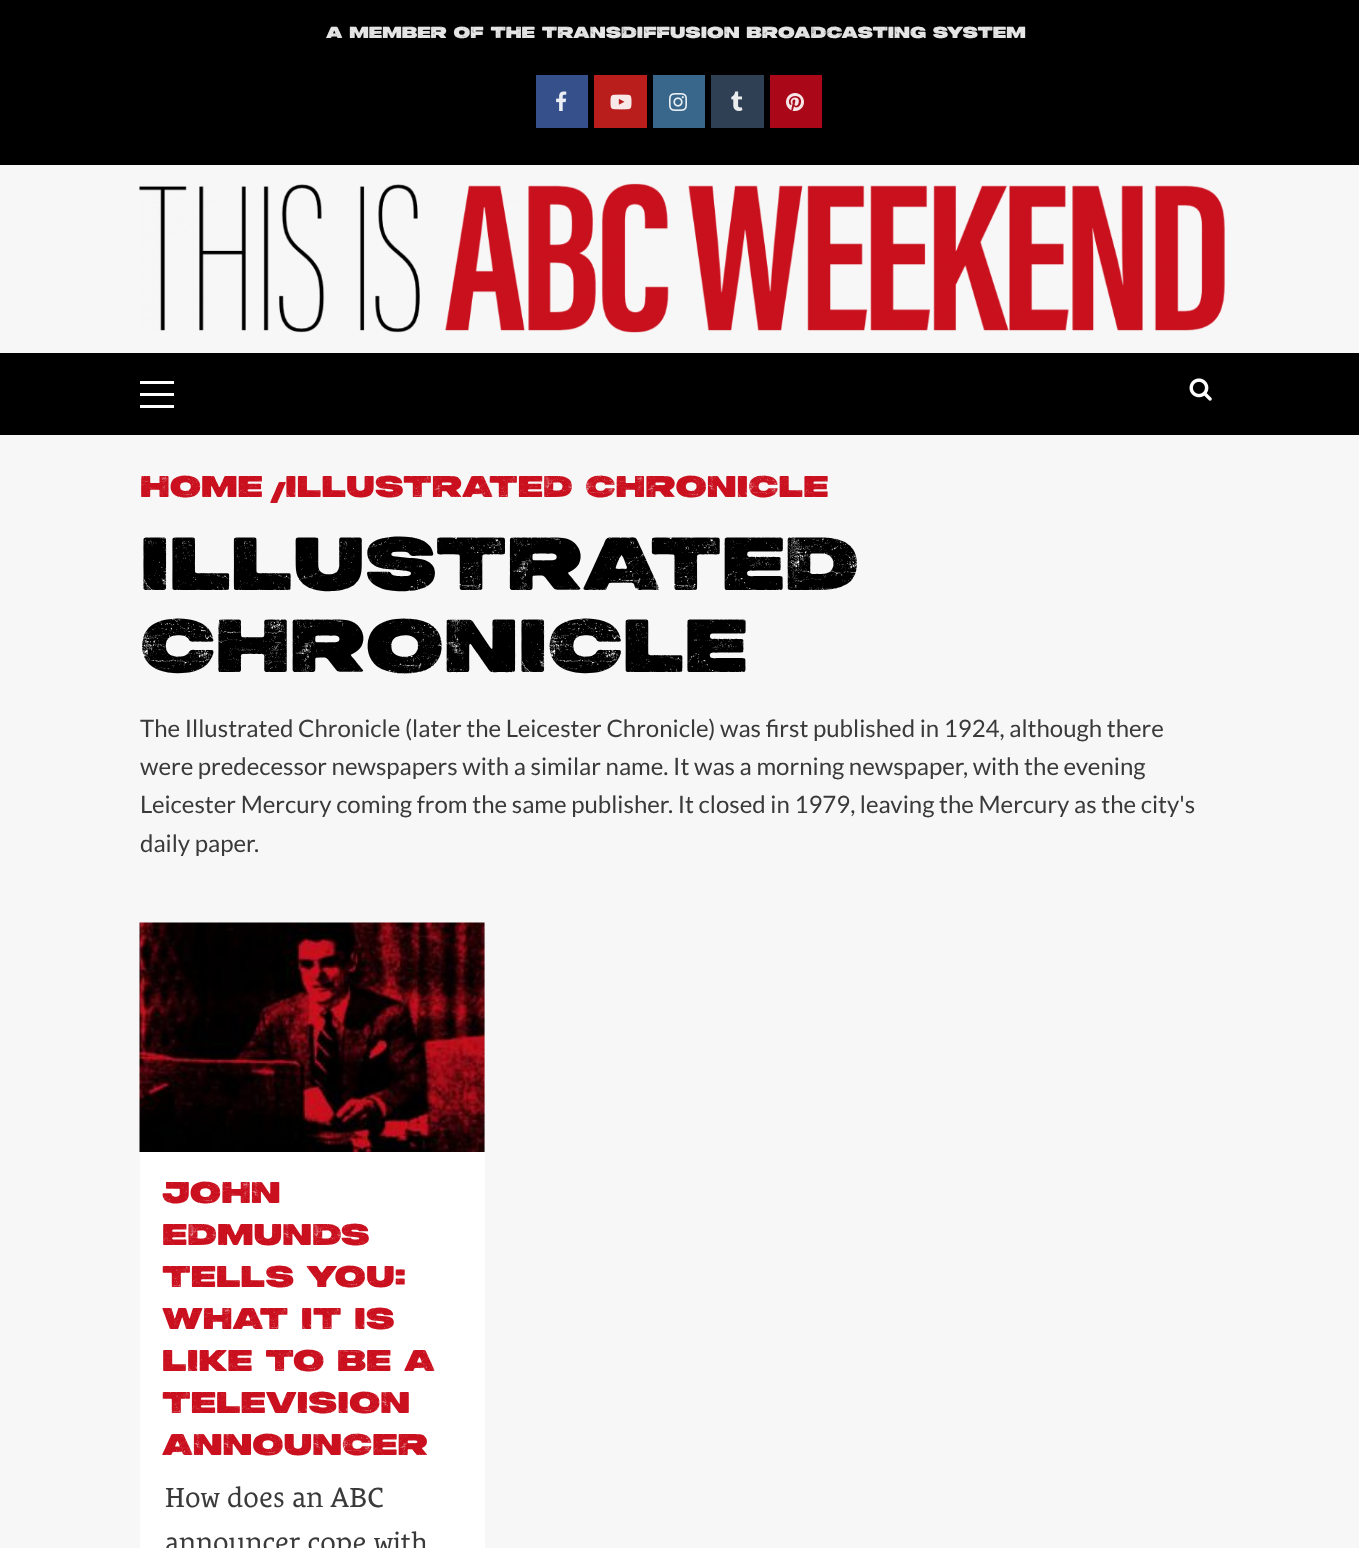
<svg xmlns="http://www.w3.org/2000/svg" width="1359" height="1548">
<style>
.a{font:16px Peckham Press;fill:#e6e6e6}
.b{font:30px Peckham Press;fill:#ca101e}
.c{font:75px Peckham Press;fill:#000}
.d{font:24px Lato;fill:#3a3a3a}
.e{font:28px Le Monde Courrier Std;fill:#3a3a3a}
</style>
<rect width="100%" height="100%" fill="#f7f7f7"/>
<path fill="#000" d="M0 0h1359v165H0z"/>
<path fill="#35508a" d="M536 75h52v53H536z"/>
<image href="1.png" x="556" y="91" width="11" height="20"/>
<path fill="#b91d1c" d="M594 75h53v53H594z"/>
<image href="2.png" x="610" y="94" width="22" height="16"/>
<path fill="#39678c" d="M653 75h52v53H653z"/>
<image href="3.png" x="669" y="93" width="18" height="18"/>
<path fill="#2f3f54" d="M711 75h53v53H711z"/>
<image href="4.png" x="731" y="91" width="12" height="20"/>
<path fill="#aa0719" d="M770 75h52v53H770z"/>
<image href="5.png" x="786" y="93" width="18" height="18"/>
<image href="6.png" x="139" y="183" width="1086" height="150"/>
<path fill="#000" d="M0 353h1359v82H0z"/>
<path fill="#fff" d="M140 393h34v3H140z"/>
<path fill="#fff" d="M140 381h34v3H140z"/>
<path fill="#fff" d="M140 405h34v3H140z"/>
<image href="7.png" x="1189" y="378" width="23" height="23"/>
<path fill="#fff" d="M140 1152h345v396H140z"/>
<path fill="#d8d8d8" d="M484 923h1v229H484z"/>
<image href="8.png" x="139" y="922" width="346" height="230"/>
<text class="a" x="326" y="38">A MEMBER OF THE TRANSDIFFUSION BROADCASTING SYSTEM</text>
<text class="b" x="140" y="497">HOME</text>
<text class="b" x="270" y="503">/</text>
<text class="b" x="285" y="497">ILLUSTRATED CHRONICLE</text>
<text class="c" x="140" y="590">ILLUSTRATED</text>
<text class="c" x="140" y="672">CHRONICLE</text>
<text class="d" x="140" y="737">The Illustrated Chronicle (later the Leicester Chronicle) was first published in 1924, although there</text>
<text class="d" x="140" y="775">were predecessor newspapers with a similar name. It was a morning newspaper, with the evening</text>
<text class="d" x="140" y="813">Leicester Mercury coming from the same publisher. It closed in 1979, leaving the Mercury as the city's</text>
<text class="d" x="140" y="852">daily paper.</text>
<text class="b" x="162" y="1203">JOHN</text>
<text class="b" x="162" y="1245">EDMUNDS</text>
<text class="b" x="162" y="1287">TELLS YOU:</text>
<text class="b" x="162" y="1329">WHAT IT IS</text>
<text class="b" x="162" y="1371">LIKE TO BE A</text>
<text class="b" x="162" y="1413">TELEVISION</text>
<text class="b" x="162" y="1455">ANNOUNCER</text>
<text class="e" x="165" y="1507">How does an ABC</text>
<text class="e" x="165" y="1552">announcer cope with</text>
</svg>
